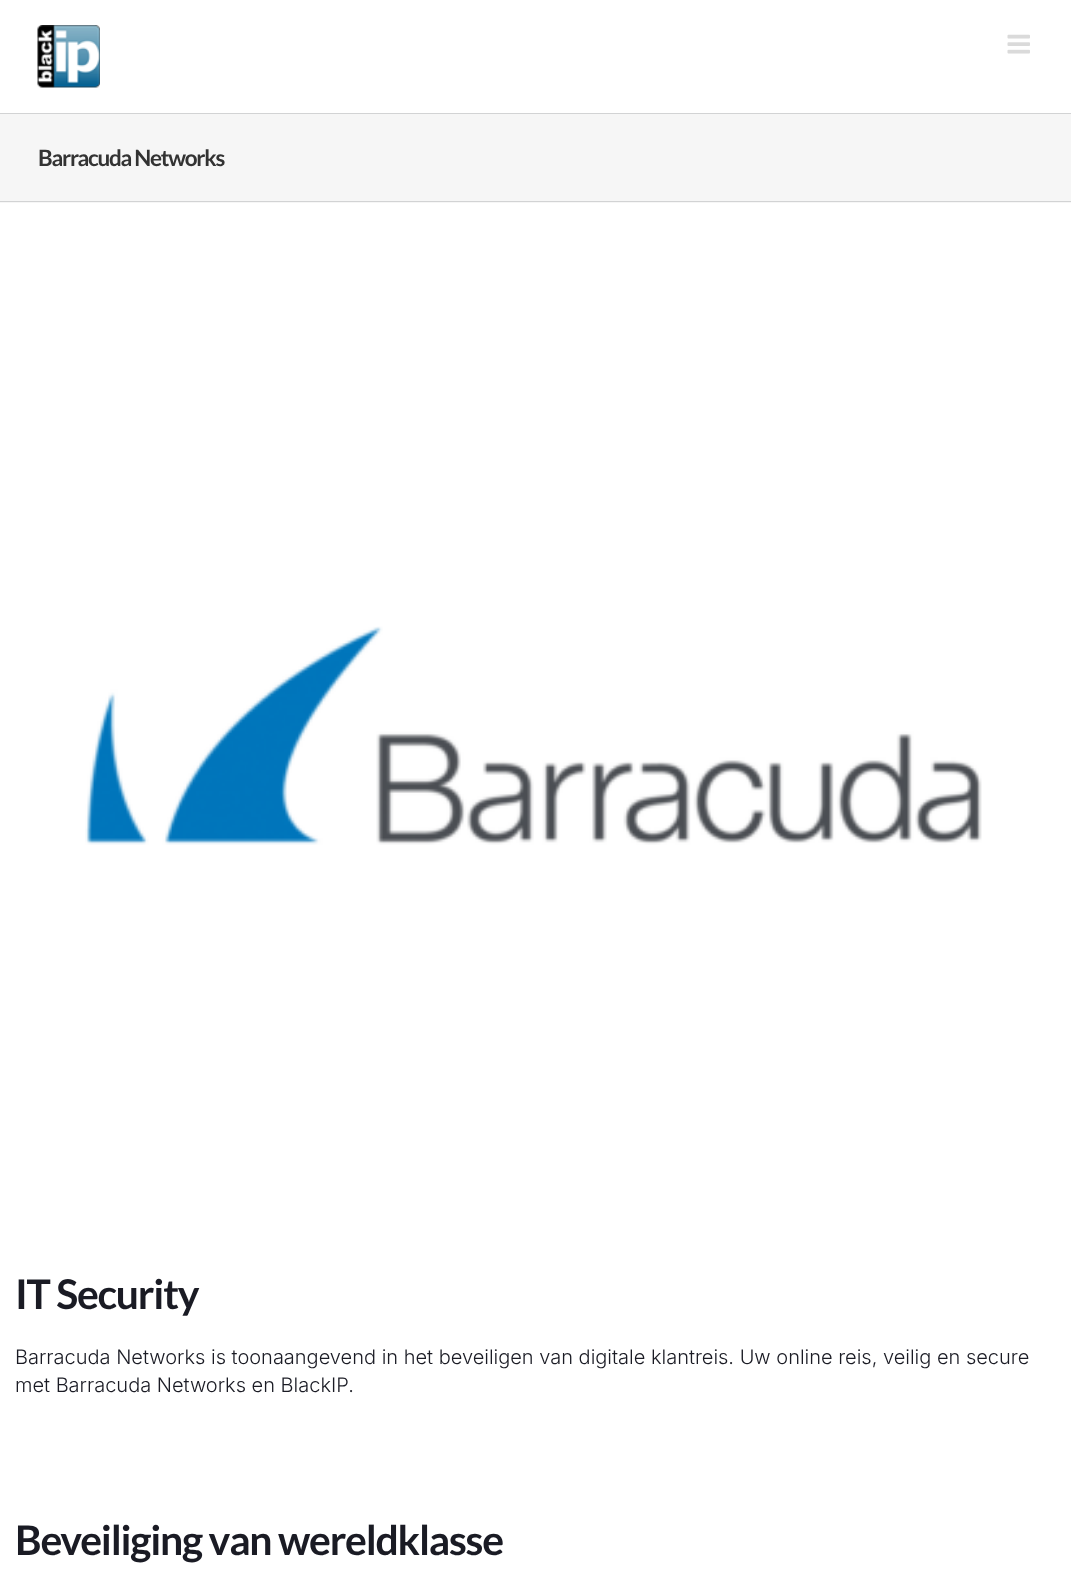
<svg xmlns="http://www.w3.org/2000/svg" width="1071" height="1582">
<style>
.a{font:bold 22.5px Lato;letter-spacing:-1.25px;fill:#333}
.b{font:bold 40.9px Lato;letter-spacing:-1.25px;fill:#1a1b24}
.c{font:300 20px Inter;fill:#1a1b24}
</style>
<rect width="100%" height="100%" fill="#fff"/>
<image href="1.png" x="37" y="25" width="63" height="63"/>
<image href="2.png" x="1007" y="34" width="23" height="20"/>
<path fill="#f6f6f6" d="M0 114h1071v89H0z"/>
<path fill="#d2d3d4" d="M0 113h1071v1H0z"/>
<path fill="#d2d3d4" d="M0 201h1071v1H0z"/>
<image href="3.png" x="85" y="626" width="897" height="219"/>
<text class="a" x="38" y="166">Barracuda Networks</text>
<text class="b" x="15" y="1309">IT Security</text>
<text class="c" x="15" y="1364">Barracuda Networks is toonaangevend in het beveiligen van digitale klantreis. Uw online reis, veilig en secure</text>
<text class="c" x="15" y="1392">met Barracuda Networks en BlackIP.</text>
<text class="b" x="15" y="1555">Beveiliging van wereldklasse</text>
</svg>
